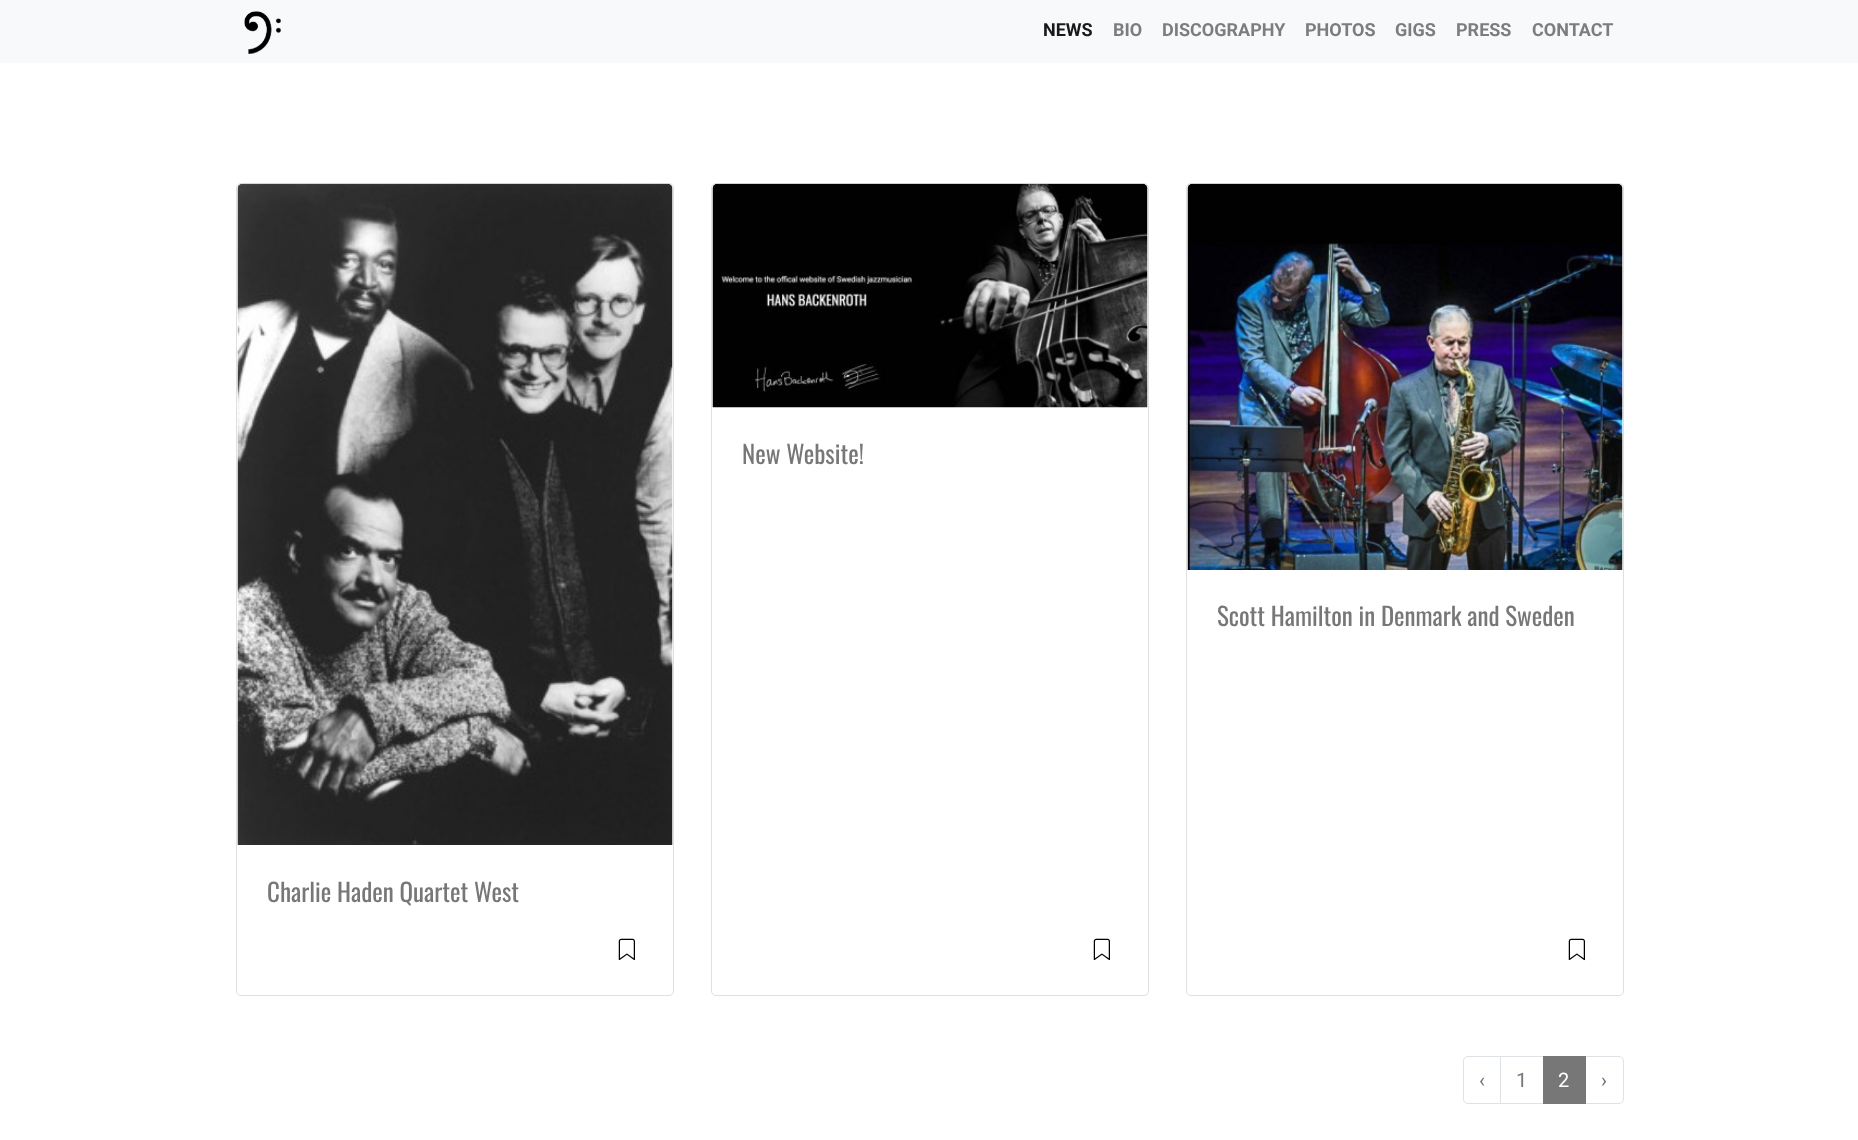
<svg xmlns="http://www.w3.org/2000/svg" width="1858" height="1140">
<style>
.a{font:bold 18px Roboto;fill:#191919}
.b{font:bold 18px Roboto;fill:#7c7d7d}
.c{font:25px Oswald;fill:#777}
.d{font:20px Roboto;fill:#777}
.e{font:20px Roboto;fill:#fff}
.f{font:20px Roboto;fill:#6c757d}
</style>
<rect width="100%" height="100%" fill="#fff"/>
<path fill="#f8f9fa" d="M0 0h1858v63H0z"/>
<image href="1.png" x="244" y="11" width="37" height="43"/>
<rect fill="none" stroke="#dfdfdf" x="711.5" y="183.5" width="437" height="812" rx="4.5"/>
<image href="2.png" x="712" y="183" width="436" height="225"/>
<image href="3.png" x="1093" y="938" width="17" height="23"/>
<rect fill="none" stroke="#dfdfdf" x="1186.5" y="183.5" width="437" height="812" rx="4.5"/>
<image href="4.png" x="1187" y="183" width="436" height="387"/>
<image href="3.png" x="1568" y="938" width="17" height="23"/>
<rect fill="none" stroke="#dfdfdf" x="236.5" y="183.5" width="437" height="812" rx="4.5"/>
<image href="5.png" x="237" y="183" width="436" height="662"/>
<image href="3.png" x="618" y="938" width="17" height="23"/>
<path fill="none" stroke="#dee2e6" d="M1468 1056.5h32.5v47h-32.5c-2.5 0-4.5-2-4.5-4.5v-38c0-2.5 2-4.5 4.5-4.5z"/>
<path fill="none" stroke="#dee2e6" d="M1500.5 1056.5h43v47H1500.5z"/>
<path fill="none" stroke="#dee2e6" d="M1585.5 1056.5h33.5c2.5 0 4.5 2 4.5 4.5v38c0 2.5-2 4.5-4.5 4.5h-33.5z"/>
<path fill="#777" d="M1543 1056h43v48H1543z"/>
<text class="a" x="1043" y="36">NEWS</text>
<text class="b" x="1113" y="36">BIO</text>
<text class="b" x="1162" y="36">DISCOGRAPHY</text>
<text class="b" x="1305" y="36">PHOTOS</text>
<text class="b" x="1395" y="36">GIGS</text>
<text class="b" x="1456" y="36">PRESS</text>
<text class="b" x="1532" y="36">CONTACT</text>
<text class="c" x="742" y="464">New Website!</text>
<text class="c" x="1217" y="626">Scott Hamilton in Denmark and Sweden</text>
<text class="c" x="267" y="902">Charlie Haden Quartet West</text>
<text class="d" x="1479" y="1087">‹</text>
<text class="d" x="1516" y="1087">1</text>
<text class="e" x="1558" y="1087">2</text>
<text class="f" x="1601" y="1087">›</text>
</svg>
